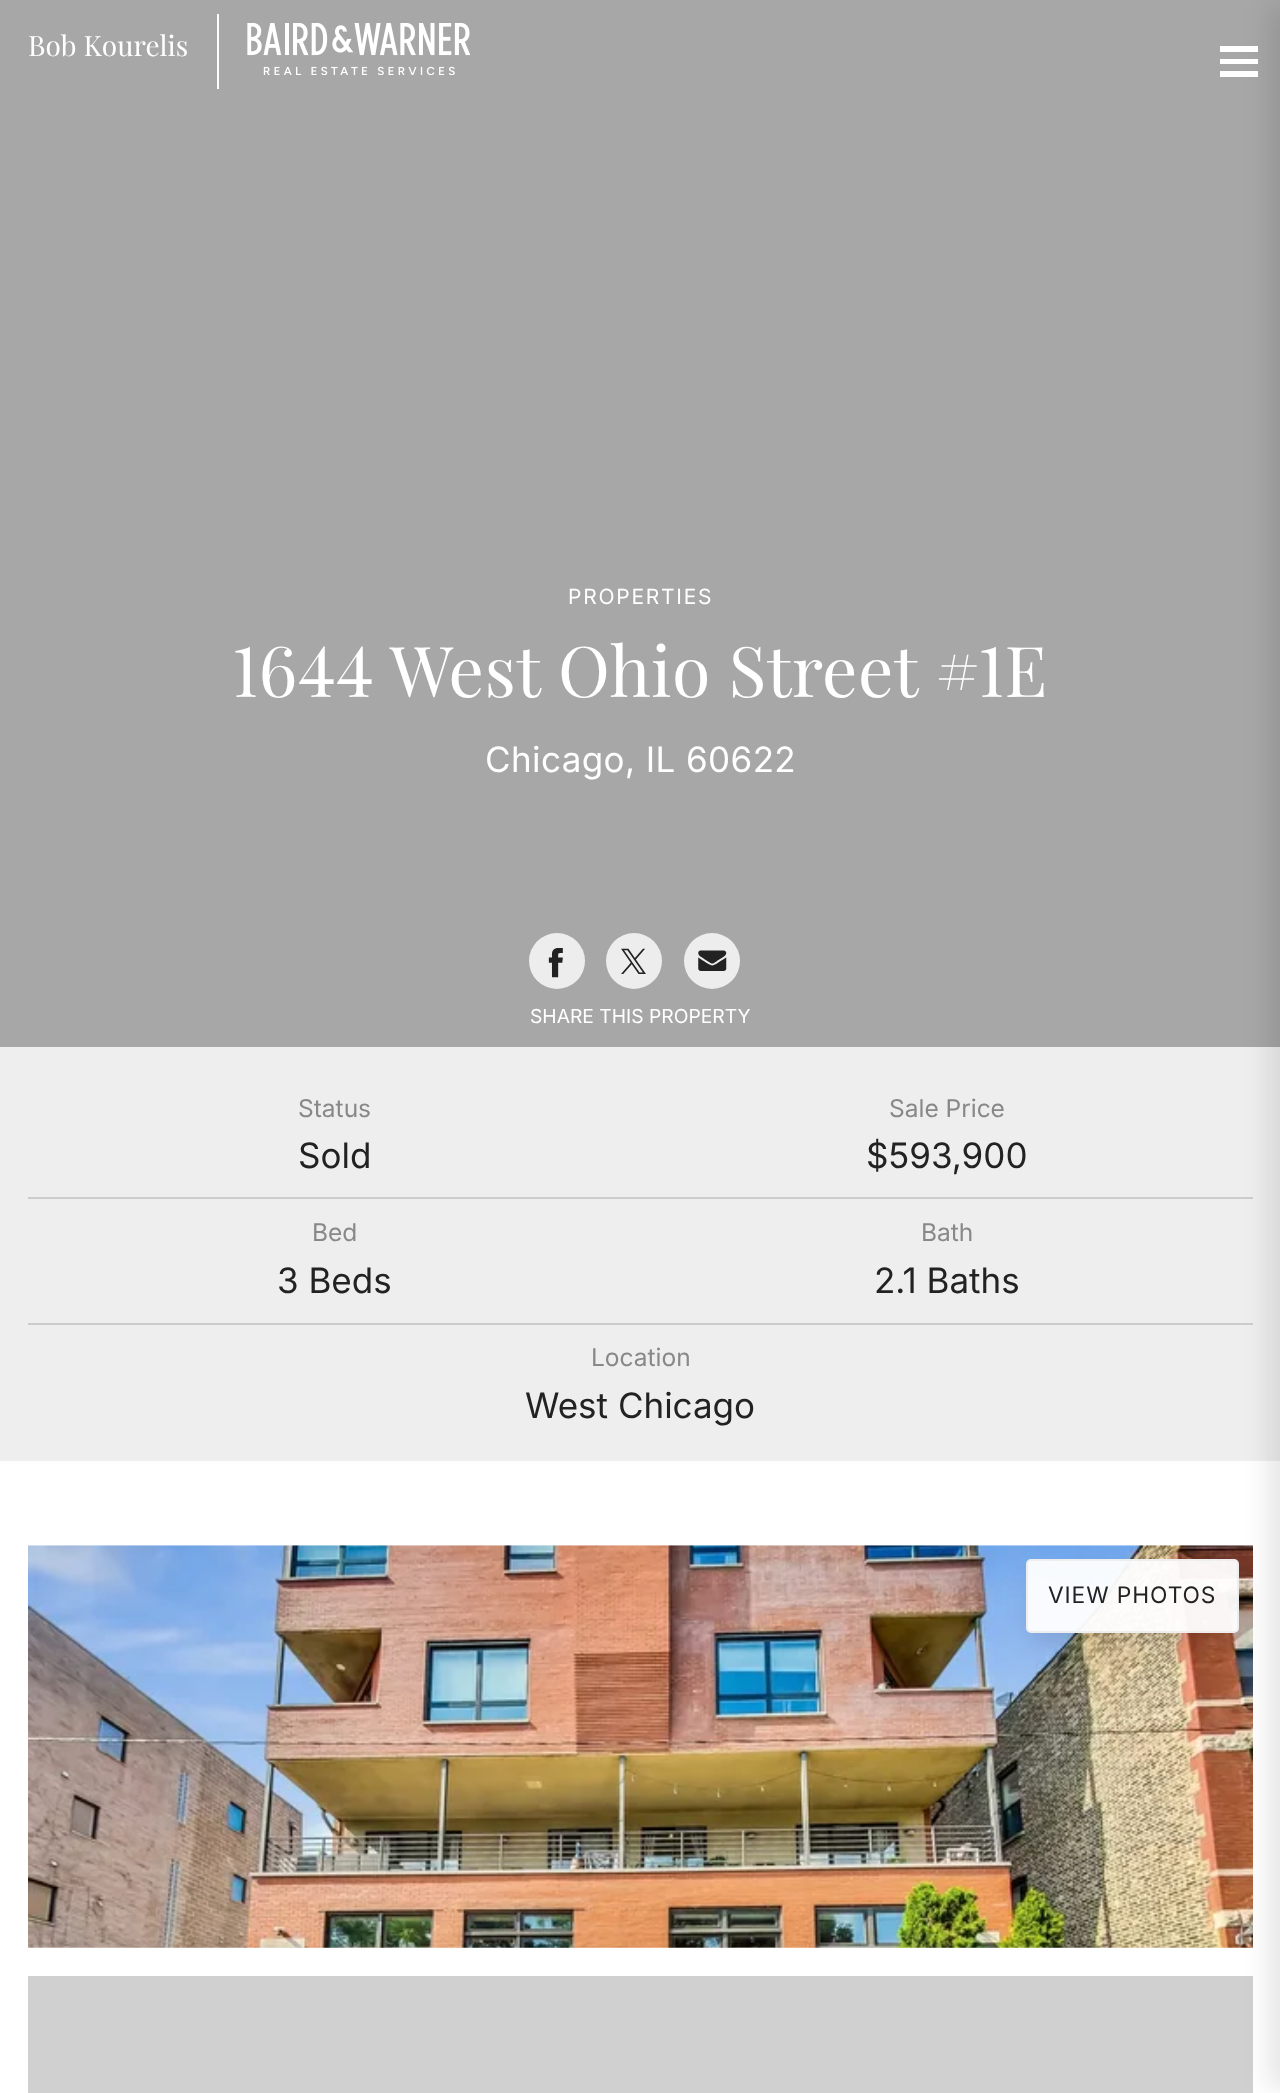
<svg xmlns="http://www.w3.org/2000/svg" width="1280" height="2093">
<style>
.a{font:28px Playfair Display;fill:#fff}
.b{font:21px Inter;letter-spacing:1.75px;fill:#fff}
.c{font:70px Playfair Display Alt;letter-spacing:0.4px;fill:#fff}
.d{font:35px Inter;letter-spacing:0.4px;fill:#fff}
.e{font:19.25px Inter;fill:#fff}
.f{font:24.5px Inter;fill:#888}
.g{font:35px Inter;fill:#222}
.h{font:22.75px Inter;letter-spacing:0.9px;fill:#222}
</style>
<defs>
<clipPath id="clip1"><path d="M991 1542h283v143h-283zm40 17h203c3 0 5 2 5 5v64c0 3-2 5-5 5h-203c-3 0-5-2-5-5v-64c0-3 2-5 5-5z" clip-rule="evenodd"/></clipPath>
</defs>
<rect width="100%" height="100%" fill="#fff"/>
<path fill="#a7a7a7" d="M0 0h1280v1047H0z"/>
<path fill="#fff" d="M217 14h2v75H217z"/>
<image href="1.png" x="247" y="23" width="223" height="52"/>
<path fill="#eee" d="M0 1047h1280v414H0z"/>
<path fill="#ccc" d="M28 1197h1225v2H28z"/>
<path fill="#ccc" d="M28 1323h1225v2H28z"/>
<image href="5.png" x="28" y="1545" width="1225" height="403"/>
<g clip-path="url(#clip1)">
<path fill="#0000001a" filter="blur(13px)" d="M1031 1582h203v63H1031z"/>
</g>
<rect fill="#fffffff2" stroke="#eee" stroke-width="2" x="1027" y="1560" width="211" height="72" rx="4"/>
<path fill="#d0d0d0" d="M28 1976h1225v117H28z"/>
<path fill="#0000001a" filter="blur(13px)" d="M1269 5h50v2083H1269z"/>
<path fill="#fff" d="M1220 46h38v6H1220z"/>
<path fill="#fff" d="M1220 59h38v5H1220z"/>
<path fill="#fff" d="M1220 71h38v6H1220z"/>
<circle fill="#ededed" cx="557" cy="961" r="28"/>
<image href="2.png" x="548" y="948" width="15" height="30"/>
<circle fill="#ededed" cx="634" cy="961" r="28"/>
<image href="3.png" x="621" y="948" width="25" height="26"/>
<circle fill="#ededed" cx="712" cy="961" r="28"/>
<image href="4.png" x="698" y="950" width="29" height="21"/>
<text class="a" x="28" y="56">Bob Kourelis</text>
<text class="b" x="568" y="604">PROPERTIES</text>
<text class="c" x="233" y="697">1644 West Ohio Street #1E</text>
<text class="d" x="485" y="772">Chicago, IL 60622</text>
<text class="e" x="530" y="1023">SHARE THIS PROPERTY</text>
<text class="f" x="298" y="1117">Status</text>
<text class="g" x="298" y="1168">Sold</text>
<text class="f" x="889" y="1117">Sale Price</text>
<text class="g" x="866" y="1168">$593,900</text>
<text class="f" x="312" y="1241">Bed</text>
<text class="g" x="277" y="1293">3 Beds</text>
<text class="f" x="921" y="1241">Bath</text>
<text class="g" x="874" y="1293">2.1 Baths</text>
<text class="f" x="591" y="1366">Location</text>
<text class="g" x="525" y="1418">West Chicago</text>
<text class="h" x="1048" y="1603">VIEW PHOTOS</text>
</svg>
